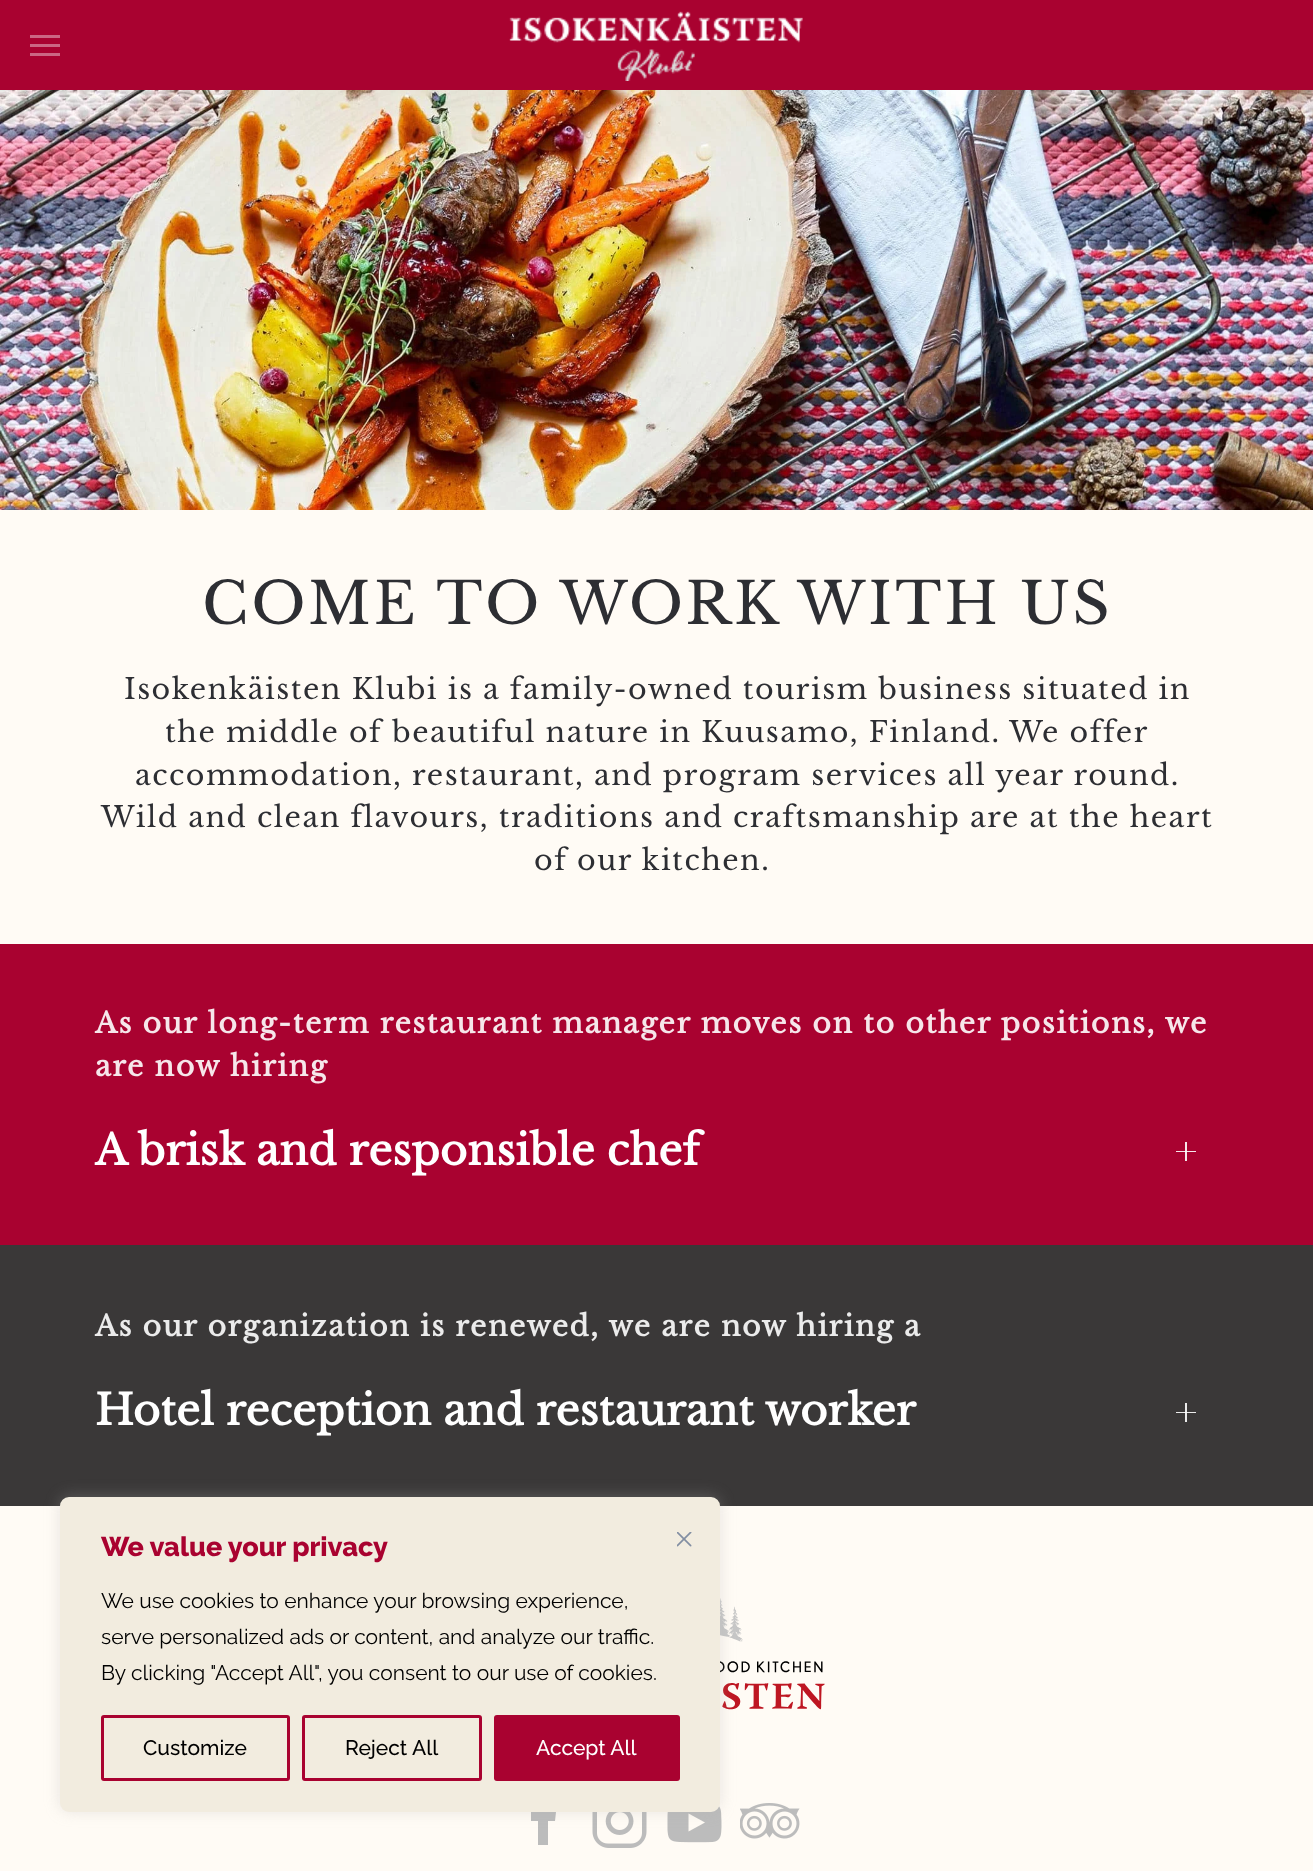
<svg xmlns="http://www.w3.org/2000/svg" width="1313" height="1871">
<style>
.a{font:57.6px Libre Baskerville;letter-spacing:3px;fill:#2d2e33}
.b{font:28.5px Libre Baskerville;letter-spacing:1.5px;fill:#2d2e33}
.c{font:bold 28.5px Libre Baskerville;letter-spacing:1.5px;fill:#f6e6ea}
.d{font:bold 42px Libre Baskerville;fill:#fff}
.e{font:bold 28.5px Libre Baskerville;letter-spacing:1.5px;fill:#ebebeb}
.f{font:100 27px Raleway;fill:#a90230}
.g{font:100 21px 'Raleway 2';fill:#000}
.h{font:100 21px 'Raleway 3';fill:#000}
.i{font:100 21px 'Raleway 3';fill:#fff}
</style>
<rect width="100%" height="100%" fill="#fffbf5"/>
<path fill="#a90230" d="M0 0h1313v90H0z"/>
<path fill="#cb6783" d="M30 35h30v3H30z"/>
<path fill="#cb6783" d="M30 44h30v3H30z"/>
<path fill="#cb6783" d="M30 53h30v3H30z"/>
<image href="1.png" x="509" y="11" width="294" height="70"/>
<image href="2.png" x="0" y="90" width="1313" height="420"/>
<path fill="#a90230" d="M0 944h1313v301H0z"/>
<path fill="#f6e6ea" d="M1185 1142h2v19H1185z"/>
<path fill="#f6e6ea" d="M1176 1151h20v1H1176z"/>
<path fill="#fefdfd" d="M1185 1151h2v1H1185z"/>
<path fill="#3a3838" d="M0 1245h1313v261H0z"/>
<path fill="#ebebeb" d="M1185 1403h2v19H1185z"/>
<path fill="#ebebeb" d="M1176 1412h20v1H1176z"/>
<path fill="#fdfdfd" d="M1185 1412h2v1H1185z"/>
<image href="3.png" x="720" y="1598" width="105" height="112"/>
<path fill="#bcbcbc" d="M548 1821h7l1-9h-8c0-9-1-10 8-10v-8h-8c-10 2-10 10-10 18h-7v9h7v24h10z"/>
<image href="4.png" x="592" y="1812" width="55" height="36"/>
<image href="5.png" x="667" y="1806" width="55" height="37"/>
<image href="6.png" x="740" y="1803" width="60" height="36"/>
<rect fill="#acabab4d" filter="blur(7.5px)" x="60" y="1496" width="660" height="315" rx="9"/>
<rect fill="#f2ecdf" stroke="#f2ecdf" stroke-width="2" x="61" y="1498" width="658" height="313" rx="8"/>
<rect fill="none" stroke="#a90230" stroke-width="3" x="102.5" y="1716.5" width="186" height="63" rx="1.5"/>
<rect fill="none" stroke="#a90230" stroke-width="3" x="303.5" y="1716.5" width="177" height="63" rx="1.5"/>
<rect fill="#a90230" stroke="#a90230" stroke-width="3" x="495.5" y="1716.5" width="183" height="63" rx="1.5"/>
<image href="7.png" x="677" y="1532" width="15" height="15"/>
<text class="a" x="202" y="624">COME TO WORK WITH US</text>
<text class="b" x="124" y="699">Isokenkäisten Klubi is a family-owned tourism business situated in</text>
<text class="b" x="165" y="742">the middle of beautiful nature in Kuusamo, Finland. We offer</text>
<text class="b" x="135" y="785">accommodation, restaurant, and program services all year round.</text>
<text class="b" x="101" y="827">Wild and clean flavours, traditions and craftsmanship are at the heart</text>
<text class="b" x="534" y="870">of our kitchen.</text>
<text class="c" x="95" y="1033">As our long-term restaurant manager moves on to other positions, we</text>
<text class="c" x="95" y="1076">are now hiring</text>
<text class="d" x="95" y="1165">A brisk and responsible chef</text>
<text class="e" x="95" y="1336">As our organization is renewed, we are now hiring a</text>
<text class="d" x="95" y="1425">Hotel reception and restaurant worker</text>
<text class="f" x="101" y="1556">We value your privacy</text>
<text class="g" x="101" y="1608">We use cookies to enhance your browsing experience,</text>
<text class="g" x="101" y="1644">serve personalized ads or content, and analyze our traffic.</text>
<text class="g" x="101" y="1680">By clicking "Accept All", you consent to our use of cookies.</text>
<text class="h" x="143" y="1755">Customize</text>
<text class="h" x="345" y="1755">Reject All</text>
<text class="i" x="536" y="1755">Accept All</text>
</svg>
